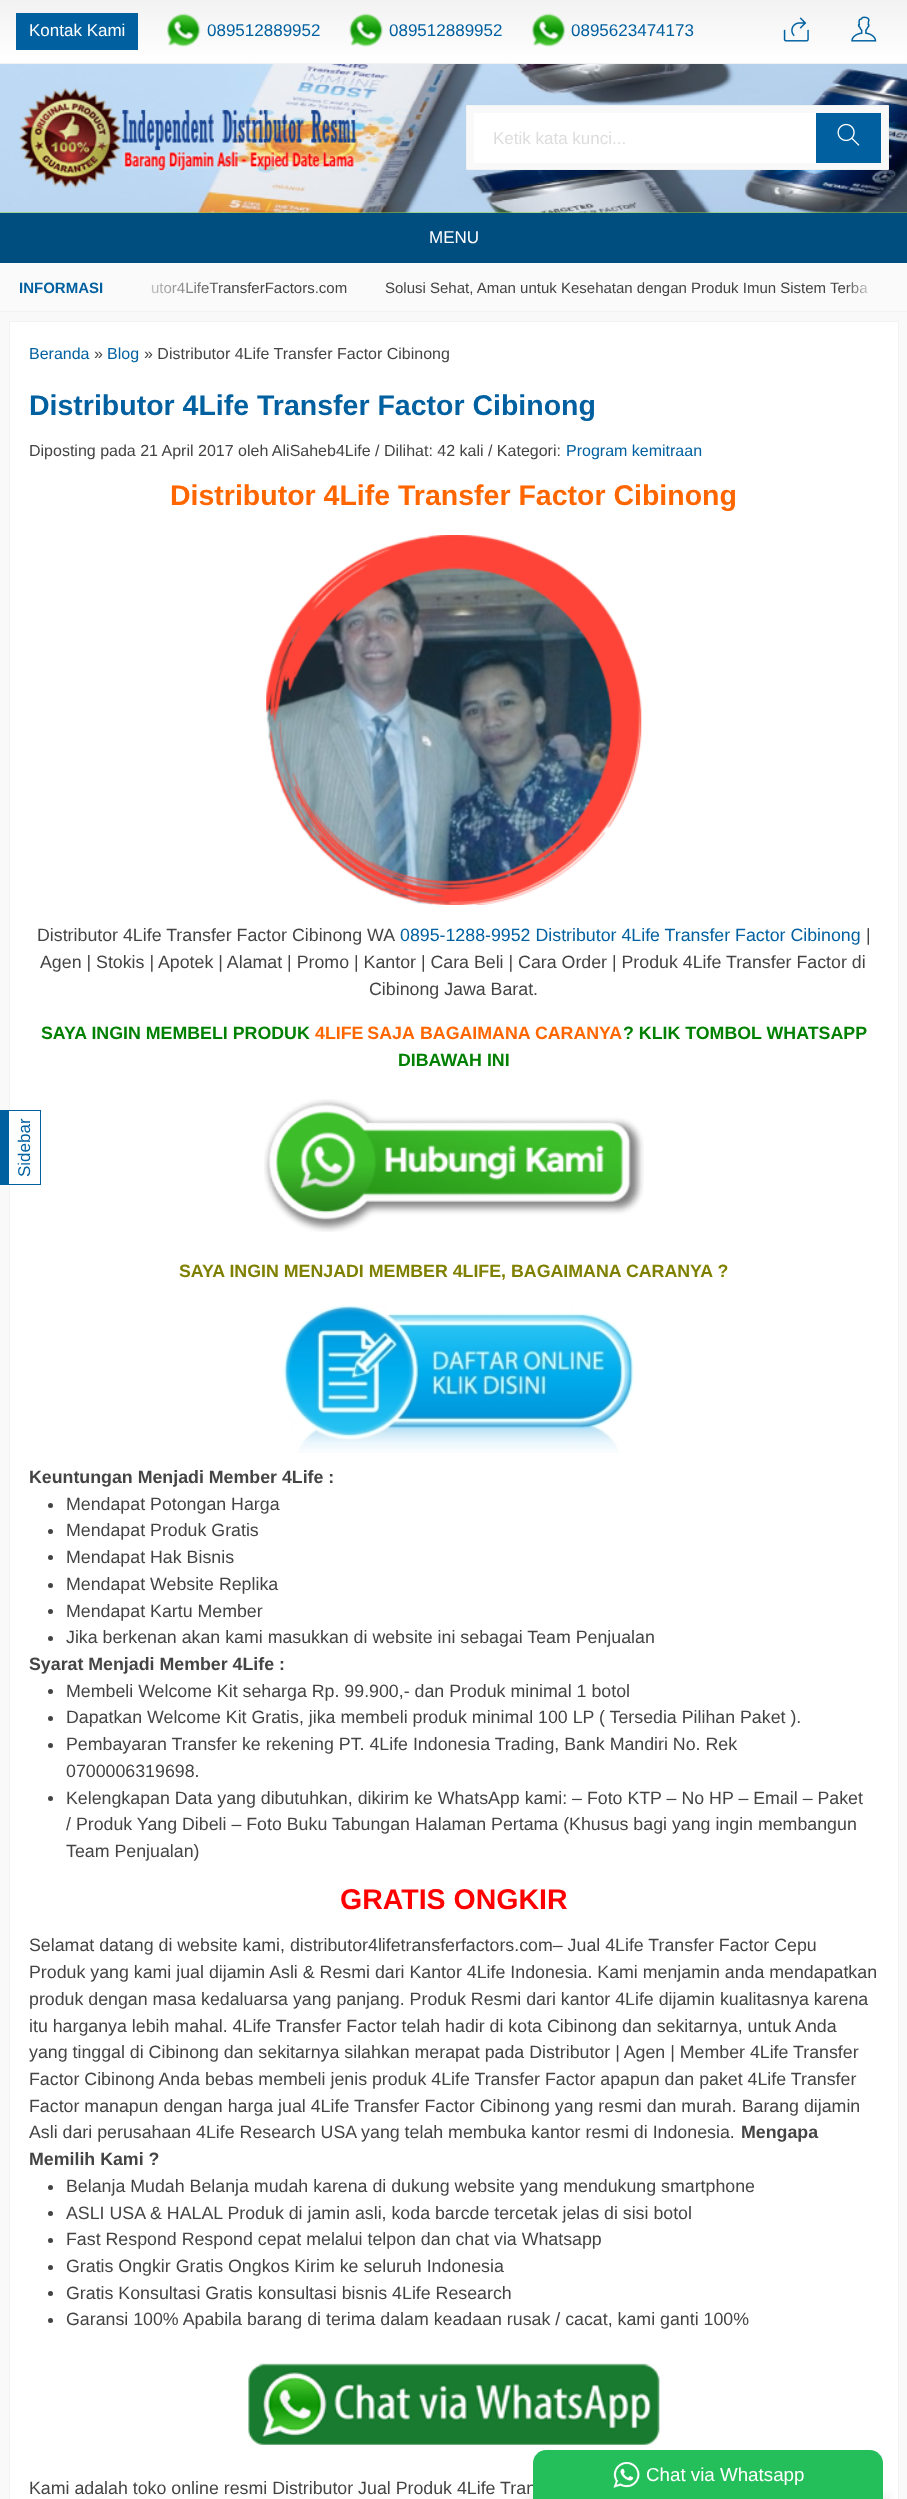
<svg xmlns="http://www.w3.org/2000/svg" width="907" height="2499">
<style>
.a{font:17px Liberation Sans;fill:#fff}
.b{font:17px Liberation Sans;fill:#0060a0}
.c{font:17px Liberation Sans;fill:#ddd}
.d{font:bold 15px Liberation Sans;fill:#0060a0}
.e{font:15px Liberation Sans;fill:#444}
.f{font:16px Liberation Sans;fill:#0060a0}
.g{font:16px Liberation Sans;fill:#444}
.h{font:bold 28.5px Liberation Sans;fill:#0060a0}
.i{font:bold 28.5px Liberation Sans;fill:#f60}
.j{font:17.8px Liberation Sans;fill:#444}
.k{font:17.8px Liberation Sans;fill:#0060a0}
.l{font:bold 17.8px Liberation Sans;fill:#008000}
.m{font:bold 17.8px Liberation Sans;fill:#f60}
.n{font:bold 17.8px Liberation Sans;fill:#808000}
.o{font:bold 17.8px Liberation Sans;fill:#444}
.p{font:bold 28.5px Liberation Sans;fill:#f00}
.q{font:18.75px Liberation Sans;fill:#fff}
</style>
<defs>
<linearGradient id="g1" gradientUnits="userSpaceOnUse" x1="454" y1="0" x2="454" y2="63"><stop offset="0" stop-color="#f2f2f2"/><stop offset="1" stop-color="#fff"/></linearGradient>
<linearGradient id="g2" gradientUnits="userSpaceOnUse" x1="454" y1="62" x2="454" y2="125"><stop offset="0" stop-color="#f2f2f2"/><stop offset="1" stop-color="#fff"/></linearGradient>
<linearGradient id="g3" gradientUnits="userSpaceOnUse" x1="0" y1="288" x2="228" y2="288"><stop offset="0" stop-color="#fafafa"/><stop offset="0.5" stop-color="#fafafa"/><stop offset="1" stop-color="#fafafa" stop-opacity="0"/></linearGradient>
<linearGradient id="g4" gradientUnits="userSpaceOnUse" x1="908" y1="288" x2="845" y2="288"><stop offset="0" stop-color="#fafafa"/><stop offset="0.5" stop-color="#fafafa"/><stop offset="1" stop-color="#fafafa" stop-opacity="0"/></linearGradient>
</defs>
<rect width="100%" height="100%" fill="#81d742"/>
<path fill="url(#g1)" d="M0 0h907v63H0z"/>
<path fill="url(#g2)" d="M0 63h907v1H0z"/>
<path fill="#0060a0" d="M16 13h122v37H16z"/>
<image href="1.png" x="167" y="13" width="34" height="34"/>
<image href="2.png" x="349" y="13" width="34" height="34"/>
<image href="3.png" x="532" y="13" width="34" height="34"/>
<image href="4.png" x="783" y="17" width="26" height="25"/>
<image href="5.png" x="851" y="16" width="26" height="26"/>
<image href="6.png" x="0" y="64" width="907" height="149"/>
<image href="7.png" x="18" y="87" width="339" height="101"/>
<path fill="#f9f9f9" stroke="#f2f2f2" d="M466.5 105.5h422v64H466.5z"/>
<path fill="#fff" d="M474 113h342v50H474z"/>
<path fill="#0060a0" d="M816 113h65v50H816z"/>
<image href="8.png" x="837" y="123" width="23" height="23"/>
<path fill="#004d80" d="M0 213h907v50H0z"/>
<path fill="#fafafa" d="M0 263h907v50H0z"/>
<path fill="#f2f2f2" d="M0 311h907v1H0z"/>
<path fill="#f9f9f9" d="M0 313h907v2186H0z"/>
<path fill="#fff" stroke="#f2f2f2" d="M9.5 321.5h889v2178H9.5z"/>
<path fill="#fff" d="M9 1111h1v73H9z"/>
<path fill="#0060a0" d="M0 1111h9v73H0z"/>
<path fill="#0060a0" d="M0 1110h41v1H0z"/>
<path fill="#0060a0" d="M40 1110h1v75H40z"/>
<path fill="#0060a0" d="M0 1184h41v1H0z"/>
<image href="9.png" x="266" y="535" width="376" height="370"/>
<image href="10.png" x="264" y="1099" width="380" height="133"/>
<image href="11.png" x="283" y="1305" width="351" height="148"/>
<circle fill="#444" cx="50.5" cy="1505.5" r="2.5"/>
<circle fill="#444" cx="50.5" cy="1531.5" r="2.5"/>
<circle fill="#444" cx="50.5" cy="1557.5" r="2.5"/>
<circle fill="#444" cx="50.5" cy="1585.5" r="2.5"/>
<circle fill="#444" cx="50.5" cy="1611.5" r="2.5"/>
<circle fill="#444" cx="50.5" cy="1638.5" r="2.5"/>
<circle fill="#444" cx="50.5" cy="1691.5" r="2.5"/>
<circle fill="#444" cx="50.5" cy="1718.5" r="2.5"/>
<circle fill="#444" cx="50.5" cy="1745.5" r="2.5"/>
<circle fill="#444" cx="50.5" cy="1798.5" r="2.5"/>
<circle fill="#444" cx="50.5" cy="2187.5" r="2.5"/>
<circle fill="#444" cx="50.5" cy="2213.5" r="2.5"/>
<circle fill="#444" cx="50.5" cy="2240.5" r="2.5"/>
<circle fill="#444" cx="50.5" cy="2267.5" r="2.5"/>
<circle fill="#444" cx="50.5" cy="2293.5" r="2.5"/>
<circle fill="#444" cx="50.5" cy="2320.5" r="2.5"/>
<image href="12.png" x="248" y="2363" width="412" height="82"/>
<path fill="#33333317" filter="blur(4px)" d="M525 2495h365v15H525z"/>
<text class="a" x="29" y="36">Kontak Kami</text>
<text class="b" x="207" y="36">089512889952</text>
<text class="b" x="389" y="36">089512889952</text>
<text class="b" x="571" y="36">0895623474173</text>
<text class="c" x="493" y="144">Ketik kata kunci...</text>
<text class="a" x="429" y="243">MENU</text>
<text class="d" x="19" y="293">INFORMASI</text>
<text class="e" x="151" y="293">utor4LifeTransferFactors.com</text>
<path fill="url(#g3)" d="M152 282h74v12H152z"/>
<text class="e" x="385" y="293">Solusi Sehat, Aman untuk Kesehatan dengan Produk Imun Sistem Terba</text>
<path fill="url(#g4)" d="M846 282h22v12H846z"/>
<text class="b" x="30" y="1177" transform="rotate(-90 30 1177)">Sidebar</text>
<text class="f" x="29" y="359">Beranda</text>
<text class="g" x="94" y="359">»</text>
<text class="f" x="107" y="359">Blog</text>
<text class="g" x="144" y="359">» Distributor 4Life Transfer Factor Cibinong</text>
<text class="h" x="29" y="415">Distributor 4Life Transfer Factor Cibinong</text>
<text class="g" x="29" y="456">Diposting pada 21 April 2017 oleh AliSaheb4Life / Dilihat: 42 kali / Kategori:</text>
<text class="f" x="566" y="456">Program kemitraan</text>
<text class="i" x="170" y="505">Distributor 4Life Transfer Factor Cibinong</text>
<text class="j" x="37" y="941">Distributor 4Life Transfer Factor Cibinong WA</text>
<text class="k" x="400" y="941">0895-1288-9952 Distributor 4Life Transfer Factor Cibinong</text>
<text class="j" x="866" y="941">|</text>
<text class="j" x="40" y="968">Agen | Stokis | Apotek | Alamat | Promo | Kantor | Cara Beli | Cara Order | Produk 4Life Transfer Factor di</text>
<text class="j" x="369" y="995">Cibinong Jawa Barat.</text>
<text class="l" x="41" y="1039">SAYA INGIN MEMBELI PRODUK</text>
<text class="m" x="315" y="1039" word-spacing="-1">4LIFE SAJA</text>
<text class="m" x="420" y="1039">BAGAIMANA CARANYA</text>
<text class="l" x="623" y="1039">? KLIK TOMBOL WHATSAPP</text>
<text class="l" x="398" y="1066">DIBAWAH INI</text>
<text class="n" x="179" y="1277">SAYA INGIN MENJADI MEMBER 4LIFE, BAGAIMANA CARANYA ?</text>
<text class="o" x="29" y="1483">Keuntungan Menjadi Member 4Life :</text>
<text class="j" x="66" y="1510">Mendapat Potongan Harga</text>
<text class="j" x="66" y="1536">Mendapat Produk Gratis</text>
<text class="j" x="66" y="1563">Mendapat Hak Bisnis</text>
<text class="j" x="66" y="1590">Mendapat Website Replika</text>
<text class="j" x="66" y="1617">Mendapat Kartu Member</text>
<text class="j" x="66" y="1643">Jika berkenan akan kami masukkan di website ini sebagai Team Penjualan</text>
<text class="o" x="29" y="1670">Syarat Menjadi Member 4Life :</text>
<text class="j" x="66" y="1697">Membeli Welcome Kit seharga Rp. 99.900,- dan Produk minimal 1 botol</text>
<text class="j" x="66" y="1723">Dapatkan Welcome Kit Gratis, jika membeli produk minimal 100 LP ( Tersedia Pilihan Paket ).</text>
<text class="j" x="66" y="1750">Pembayaran Transfer ke rekening PT. 4Life Indonesia Trading, Bank Mandiri No. Rek</text>
<text class="j" x="66" y="1777">0700006319698.</text>
<text class="j" x="66" y="1804">Kelengkapan Data yang dibutuhkan, dikirim ke WhatsApp kami: – Foto KTP – No HP – Email – Paket</text>
<text class="j" x="66" y="1830">/ Produk Yang Dibeli – Foto Buku Tabungan Halaman Pertama (Khusus bagi yang ingin membangun</text>
<text class="j" x="66" y="1857">Team Penjualan)</text>
<text class="p" x="340" y="1909">GRATIS ONGKIR</text>
<text class="j" x="29" y="1951">Selamat datang di website kami, distributor4lifetransferfactors.com– Jual 4Life Transfer Factor Cepu</text>
<text class="j" x="29" y="1978">Produk yang kami jual dijamin Asli &amp; Resmi dari Kantor 4Life Indonesia. Kami menjamin anda mendapatkan</text>
<text class="j" x="29" y="2005">produk dengan masa kedaluarsa yang panjang. Produk Resmi dari kantor 4Life dijamin kualitasnya karena</text>
<text class="j" x="29" y="2032">itu harganya lebih mahal. 4Life Transfer Factor telah hadir di kota Cibinong dan sekitarnya, untuk Anda</text>
<text class="j" x="29" y="2058">yang tinggal di Cibinong dan sekitarnya silahkan merapat pada Distributor | Agen | Member 4Life Transfer</text>
<text class="j" x="29" y="2085">Factor Cibinong Anda bebas membeli jenis produk 4Life Transfer Factor apapun dan paket 4Life Transfer</text>
<text class="j" x="29" y="2112">Factor manapun dengan harga jual 4Life Transfer Factor Cibinong yang resmi dan murah. Barang dijamin</text>
<text class="j" x="29" y="2138">Asli dari perusahaan 4Life Research USA yang telah membuka kantor resmi di Indonesia.</text>
<text class="o" x="741" y="2138">Mengapa</text>
<text class="o" x="29" y="2165">Memilih Kami ?</text>
<text class="j" x="66" y="2192">Belanja Mudah Belanja mudah karena di dukung website yang mendukung smartphone</text>
<text class="j" x="66" y="2219">ASLI USA &amp; HALAL Produk di jamin asli, koda barcde tercetak jelas di sisi botol</text>
<text class="j" x="66" y="2245">Fast Respond Respond cepat melalui telpon dan chat via Whatsapp</text>
<text class="j" x="66" y="2272">Gratis Ongkir Gratis Ongkos Kirim ke seluruh Indonesia</text>
<text class="j" x="66" y="2299">Gratis Konsultasi Gratis konsultasi bisnis 4Life Research</text>
<text class="j" x="66" y="2325">Garansi 100% Apabila barang di terima dalam keadaan rusak / cacat, kami ganti 100%</text>
<text class="j" x="29" y="2494">Kami adalah toko online resmi Distributor Jual Produk 4Life Tran</text>
<path fill="#24be5b" d="M546 2450h324c7 0 13 6 13 13v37h-350v-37c0-7 6-13 13-13z"/>
<image href="13.png" x="613" y="2462" width="27" height="26"/>
<text class="q" x="646" y="2481">Chat via Whatsapp</text>
</svg>
